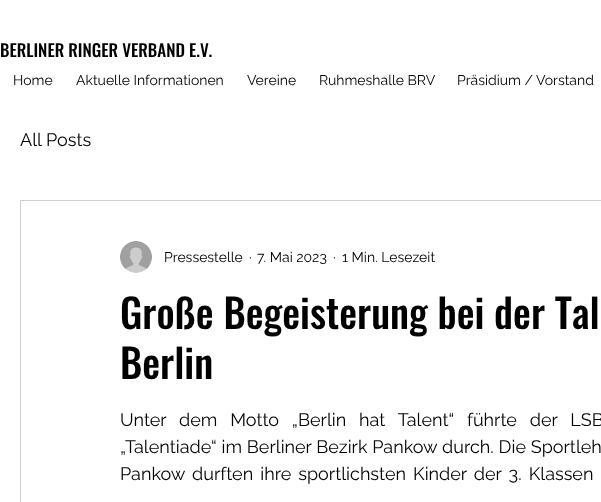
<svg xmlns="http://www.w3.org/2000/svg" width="601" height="502">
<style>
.a{font:500 17px Oswald;fill:#000}
.b{font:14px Raleway;fill:#000}
.c{font:18px Raleway;fill:#000}
.d{font:500 40px Oswald;fill:#000}
</style>
<rect width="100%" height="100%" fill="#fff"/>
<path fill="none" stroke="#cfcfcf" d="M20.5 200.5h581v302H20.5z"/>
<image href="1.png" x="120" y="241" width="32" height="32"/>
<text class="a" x="0" y="57">BERLINER RINGER VERBAND E.V.</text>
<text class="b" x="13" y="85">Home</text>
<text class="b" x="76" y="85">Aktuelle Informationen</text>
<text class="b" x="247" y="85">Vereine</text>
<text class="b" x="319" y="85">Ruhmeshalle BRV</text>
<text class="b" x="457" y="85">Präsidium / Vorstand</text>
<text class="c" x="20" y="146">All Posts</text>
<text class="b" x="164" y="262">Pressestelle</text>
<text class="b" x="249" y="262">·</text>
<text class="b" x="257" y="262">7. Mai 2023</text>
<text class="b" x="333" y="262">·</text>
<text class="b" x="342" y="262">1 Min. Lesezeit</text>
<text class="d" x="120" y="329">Große Begeisterung bei der Tal</text>
<text class="d" x="120" y="379">Berlin</text>
<text class="c" x="120" y="426" word-spacing="8.25">Unter dem Motto „Berlin hat Talent“ führte der LSB</text>
<text class="c" x="120" y="453" word-spacing="0.25">„Talentiade“ im Berliner Bezirk Pankow durch. Die Sportleh</text>
<text class="c" x="120" y="480" word-spacing="2.5">Pankow durften ihre sportlichsten Kinder der 3. Klassen</text>
</svg>
